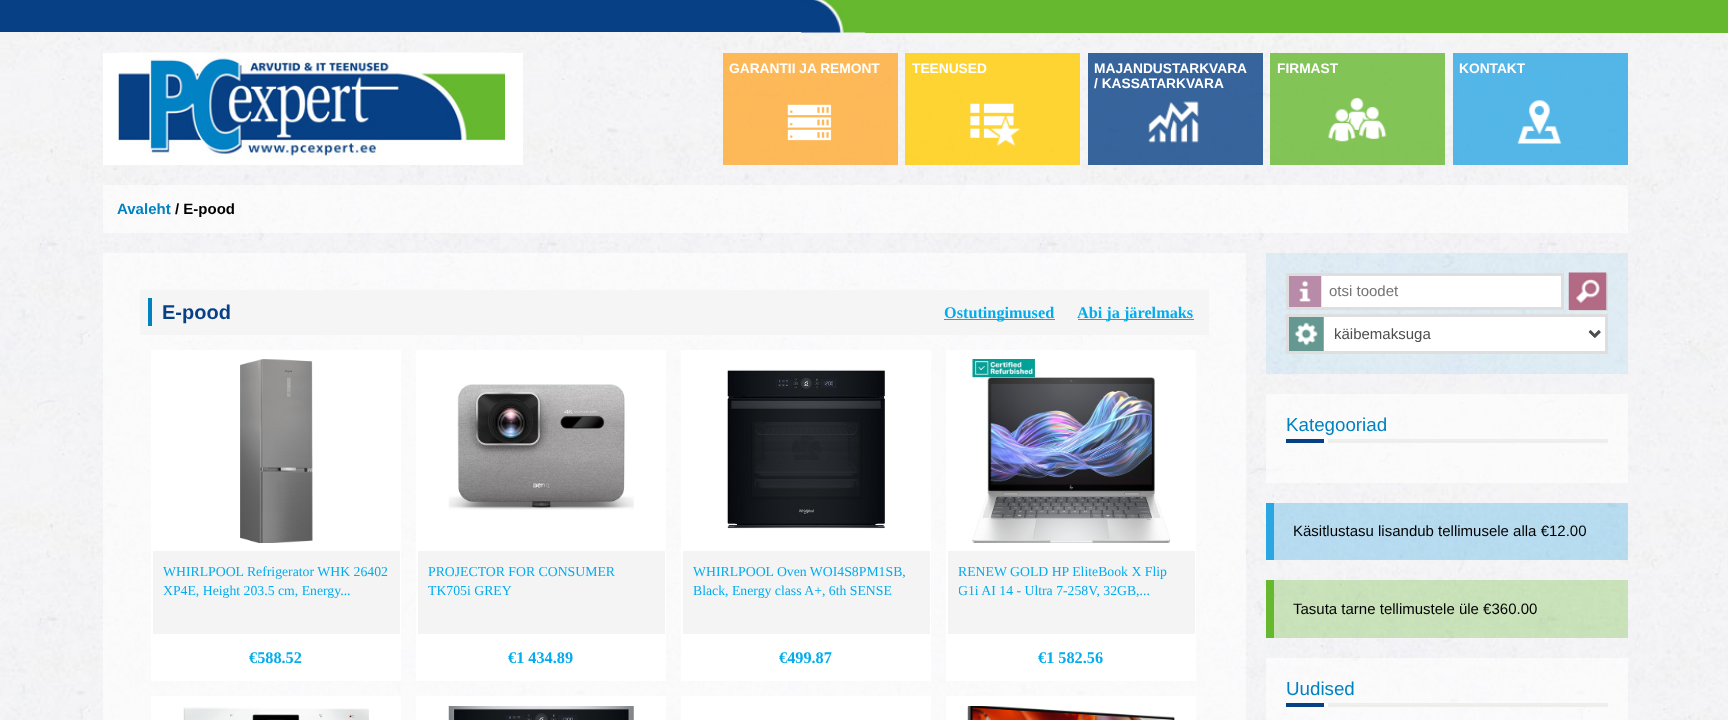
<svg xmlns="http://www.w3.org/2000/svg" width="1728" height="720">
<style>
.a{font:bold 13.75px Liberation Sans;fill:#fff}
.b{font:bold 15px Liberation Sans;fill:#0181c2}
.c{font:bold 15px Liberation Sans;fill:#000}
.d{font:bold 20px Liberation Sans;fill:#074085}
.e{font:bold 16.25px Liberation Serif;fill:#05aced}
.f{font:13.75px Liberation Serif;fill:#05aced}
.g{font:15px Liberation Sans;fill:#757575}
.h{font:15px Liberation Sans;fill:#4e4e4e}
.i{font:18.75px Liberation Sans;fill:#0181c2}
.j{font:15px Liberation Sans;fill:#000}
</style>
<defs>
<clipPath id="clip1"><path d="M959 563h225v60H959z"/></clipPath>
</defs>
<rect width="100%" height="100%" fill="#074085"/>
<image href="2.png" x="0" y="32" width="1728" height="688"/>
<image href="1.png" x="801" y="0" width="64" height="33"/>
<path fill="#66b82f" d="M865 0h863v33H865z"/>
<path fill="#fff" d="M103 53h420v112H103z"/>
<image href="3.png" x="118" y="52" width="387" height="107"/>
<path fill="#ffaa31cc" d="M723 53h175v112H723z"/>
<image href="4.png" x="787" y="104" width="45" height="37"/>
<path fill="#ffcc00cc" d="M905 53h175v112H905z"/>
<image href="5.png" x="970" y="103" width="51" height="43"/>
<path fill="#074085cc" d="M1088 53h175v112H1088z"/>
<image href="6.png" x="1148" y="101" width="51" height="42"/>
<path fill="#66b82fcc" d="M1270 53h175v112H1270z"/>
<image href="7.png" x="1328" y="98" width="59" height="44"/>
<path fill="#2aa6e3cc" d="M1453 53h175v112H1453z"/>
<image href="8.png" x="1517" y="100" width="45" height="44"/>
<path fill="#ffffff99" d="M103 185h1525v48H103z"/>
<path fill="#ffffff99" d="M103 253h1143v467H103z"/>
<path fill="#f5f5f5" d="M140 290h1069v45H140z"/>
<path fill="#0081c2" d="M148 298h4v28H148z"/>
<path fill="#05aced" d="M944 319h111v1H944z"/>
<path fill="#05aced" d="M1078 319h116v1H1078z"/>
<path fill="#fff" d="M151 350h250v331H151z"/>
<image href="9.png" x="240" y="359" width="73" height="184"/>
<path fill="#f4f4f4" d="M153 551h247v83H153z"/>
<path fill="#fff" d="M416 350h250v331H416z"/>
<image href="10.png" x="448" y="384" width="186" height="126"/>
<path fill="#f4f4f4" d="M418 551h247v83H418z"/>
<path fill="#fff" d="M681 350h250v331H681z"/>
<image href="11.png" x="726" y="369" width="160" height="160"/>
<path fill="#f4f4f4" d="M683 551h247v83H683z"/>
<path fill="#fff" d="M946 350h250v331H946z"/>
<image href="12.png" x="972" y="359" width="198" height="184"/>
<path fill="#f4f4f4" d="M948 551h247v83H948z"/>
<path fill="#fff" d="M151 696h250v24H151z"/>
<image href="13.png" x="183" y="707" width="186" height="13"/>
<path fill="#fff" d="M416 696h250v24H416z"/>
<image href="14.png" x="448" y="706" width="186" height="14"/>
<path fill="#fff" d="M681 696h250v24H681z"/>
<path fill="#fff" d="M946 696h250v24H946z"/>
<image href="15.png" x="967" y="706" width="208" height="14"/>
<path fill="#2aa6e31a" d="M1266 253h362v121H1266z"/>
<path fill="#fff" d="M1289 276h272v31H1289z"/>
<image href="16.png" x="1289" y="276" width="33" height="31"/>
<path fill="none" stroke="#dedede" stroke-width="3" d="M1287.5 274.5h275v34H1287.5z"/>
<path fill="#dbdbdb" filter="blur(0.5px)" d="M1570 274h38v37H1570z"/>
<image href="17.png" x="1568" y="272" width="39" height="38"/>
<path fill="#fff" d="M1289 317h316v34H1289z"/>
<image href="18.png" x="1289" y="317" width="312" height="34"/>
<path fill="none" stroke="#dedede" stroke-width="3" d="M1287.5 315.5h319v37H1287.5z"/>
<path fill="none" stroke="#4e4e4e" stroke-width="2.5" d="M1589.5 331l5 5l5-5"/>
<path fill="#ffffff99" d="M1266 394h362v89H1266z"/>
<path fill="#eeefed" d="M1328 439h280v4H1328z"/>
<path fill="#074085" d="M1286 439h42v4H1286z"/>
<path fill="#fff" d="M1324 439h4v4H1324z"/>
<path fill="#2aa6e34d" d="M1274 503h354v57H1274z"/>
<path fill="#2aa6e3" d="M1266 503h8v57H1266z"/>
<path fill="#66b82f4d" d="M1274 580h354v58H1274z"/>
<path fill="#66b82f" d="M1266 580h8v58H1266z"/>
<path fill="#ffffff99" d="M1266 658h362v62H1266z"/>
<path fill="#eeefed" d="M1328 703h280v4H1328z"/>
<path fill="#074085" d="M1286 703h42v4H1286z"/>
<path fill="#fff" d="M1324 703h4v4H1324z"/>
<text class="a" x="729" y="73">GARANTII JA REMONT</text>
<text class="a" x="912" y="73">TEENUSED</text>
<text class="a" x="1094" y="73">MAJANDUSTARKVARA</text>
<text class="a" x="1094" y="88">/ KASSATARKVARA</text>
<text class="a" x="1277" y="73">FIRMAST</text>
<text class="a" x="1459" y="73">KONTAKT</text>
<text class="b" x="117" y="214">Avaleht</text>
<text class="c" x="175" y="214">/ E-pood</text>
<text class="d" x="162" y="319">E-pood</text>
<text class="e" x="944" y="318">Ostutingimused</text>
<text class="e" x="1077" y="318">Abi ja järelmaks</text>
<text class="f" x="163" y="576">WHIRLPOOL Refrigerator WHK 26402</text>
<text class="f" x="163" y="595">XP4E, Height 203.5 cm, Energy...</text>
<text class="e" x="249" y="663">€588.52</text>
<text class="f" x="428" y="576">PROJECTOR FOR CONSUMER</text>
<text class="f" x="428" y="595">TK705i GREY</text>
<text class="e" x="508" y="663">€1 434.89</text>
<text class="f" x="693" y="576">WHIRLPOOL Oven WOI4S8PM1SB,</text>
<text class="f" x="693" y="595">Black, Energy class A+, 6th SENSE</text>
<text class="e" x="779" y="663">€499.87</text>
<text class="f" x="958" y="576">RENEW GOLD HP EliteBook X Flip</text>
<g clip-path="url(#clip1)">
<text class="f" x="958" y="595">G1i AI 14 - Ultra 7-258V, 32GB,...</text>
</g>
<text class="e" x="1038" y="663">€1 582.56</text>
<text class="g" x="1329" y="296">otsi toodet</text>
<text class="h" x="1334" y="339">käibemaksuga</text>
<text class="i" x="1286" y="431">Kategooriad</text>
<text class="j" x="1293" y="536">Käsitlustasu lisandub tellimusele alla €12.00</text>
<text class="j" x="1293" y="614">Tasuta tarne tellimustele üle €360.00</text>
<text class="i" x="1286" y="695">Uudised</text>
</svg>
